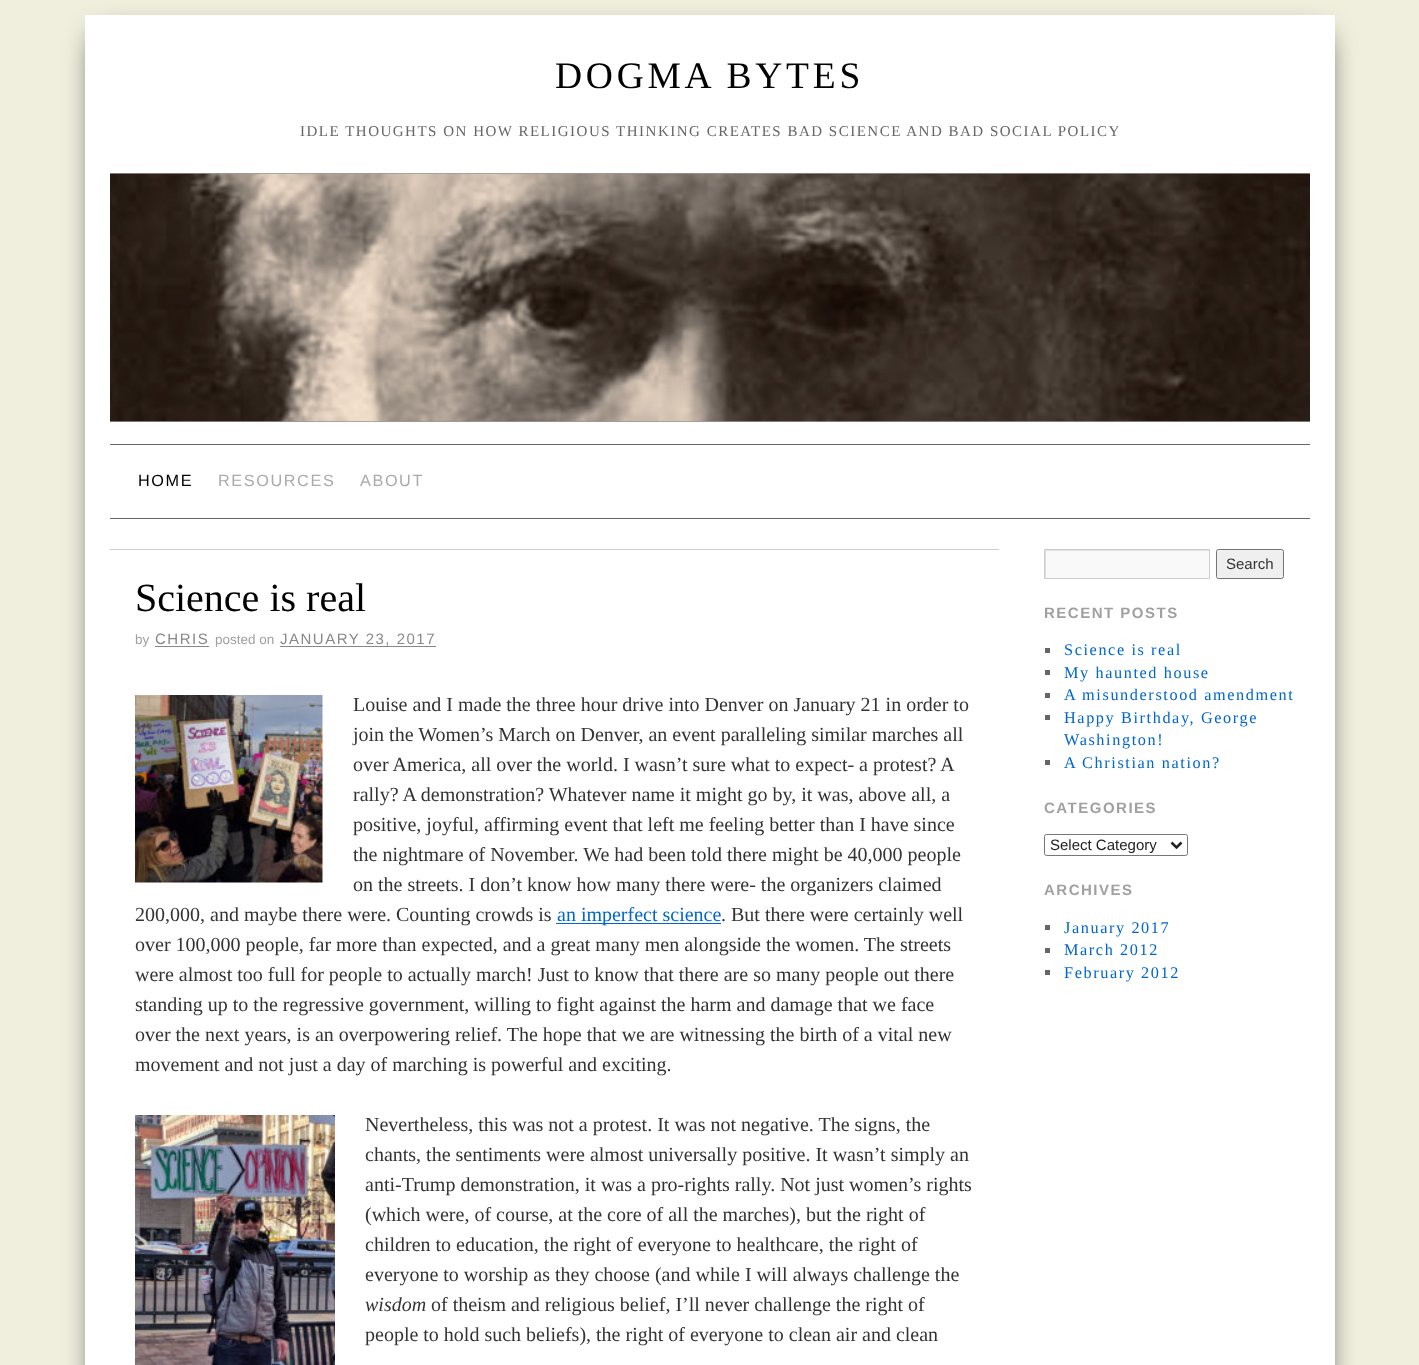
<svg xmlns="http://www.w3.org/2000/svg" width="1419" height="1365">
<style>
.a{font:37.5px Liberation Serif;letter-spacing:3.75px;fill:#000}
.b{font:15px Liberation Serif;letter-spacing:1.5px;fill:#666}
.c{font:16.25px Liberation Sans;letter-spacing:1.6px;fill:#000}
.d{font:16.25px Liberation Sans;letter-spacing:1.6px;fill:#aaa}
.e{font:40px Liberation Serif;fill:#000}
.f{font:13.5px Liberation Sans;fill:#a0a0a0}
.g{font:15px Liberation Sans;letter-spacing:1.5px;fill:#888}
.h{font:20px Liberation Serif;fill:#333}
.i{font:20px Liberation Serif;fill:#06c}
.j{font:italic 20px Liberation Serif;fill:#333}
.k{font:15px Liberation Sans;fill:#333}
.l{font:bold 15px Liberation Sans;letter-spacing:1.5px;fill:#a0a0a0}
.m{font:16.25px Liberation Serif;letter-spacing:1.6px;fill:#06c}
.n{font:15px Liberation Sans;fill:#222}
</style>
<defs>
<clipPath id="clip1"><path d="M1045 550h164v28H1045z"/></clipPath>
</defs>
<rect width="100%" height="100%" fill="#f0eedd"/>
<path fill="#000" filter="blur(15px)" d="M98 38h1225v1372H98z"/>
<path fill="#fff" d="M85 15h1250v1350H85z"/>
<path fill="#999" d="M110 173h1200v1H110z"/>
<path fill="#999" d="M110 421h1200v1H110z"/>
<image href="1.png" x="110" y="173" width="1200" height="249"/>
<path fill="#666" d="M110 444h1200v1H110z"/>
<path fill="#666" d="M110 518h1200v1H110z"/>
<path fill="#ccc" d="M110 549h889v1H110z"/>
<path fill="#888" d="M155 646h54v1H155z"/>
<path fill="#888" d="M280 646h156v1H280z"/>
<image href="2.png" x="135" y="695" width="188" height="188"/>
<path fill="#06c" d="M556 923h165v1H556z"/>
<image href="3.png" x="135" y="1115" width="200" height="250"/>
<path fill="#f9f9f9" d="M1046 551h163v27H1046z"/>
<g clip-path="url(#clip1)">
<path fill="#e0e0e0" fill-rule="evenodd" d="M921 426h411v275h-411zm125 125h164v28h-164z"/>
</g>
<path fill="none" stroke="#ccc" d="M1044.5 549.5h165v29H1044.5z"/>
<rect fill="#efefef" stroke="#767676" x="1216.5" y="549.5" width="67" height="29" rx="2"/>
<path fill="#666" d="M1045 648h5v5H1045z"/>
<path fill="#666" d="M1045 670h5v5H1045z"/>
<path fill="#666" d="M1045 693h5v5H1045z"/>
<path fill="#666" d="M1045 715h5v5H1045z"/>
<path fill="#666" d="M1045 760h5v5H1045z"/>
<rect fill="none" stroke="#767676" x="1044.5" y="834.5" width="143" height="21" rx="2"/>
<path fill="none" stroke="#222" stroke-width="2.5" d="M1171.5 842.5l5 5l5-5"/>
<path fill="#666" d="M1045 925h5v5H1045z"/>
<path fill="#666" d="M1045 948h5v5H1045z"/>
<path fill="#666" d="M1045 970h5v5H1045z"/>
<text class="a" x="555" y="88">DOGMA BYTES</text>
<text class="b" x="300" y="136">IDLE THOUGHTS ON HOW RELIGIOUS THINKING CREATES BAD SCIENCE AND BAD SOCIAL POLICY</text>
<text class="c" x="138" y="486">HOME</text>
<text class="d" x="218" y="486">RESOURCES</text>
<text class="d" x="360" y="486">ABOUT</text>
<text class="e" x="135" y="611">Science is real</text>
<text class="f" x="135" y="644">by</text>
<text class="g" x="155" y="644">CHRIS</text>
<text class="f" x="215" y="644">posted on</text>
<text class="g" x="280" y="644">JANUARY 23, 2017</text>
<text class="h" x="353" y="711">Louise and I made the three hour drive into Denver on January 21 in order to</text>
<text class="h" x="353" y="741">join the Women’s March on Denver, an event paralleling similar marches all</text>
<text class="h" x="353" y="771">over America, all over the world. I wasn’t sure what to expect- a protest? A</text>
<text class="h" x="353" y="801">rally? A demonstration? Whatever name it might go by, it was, above all, a</text>
<text class="h" x="353" y="831">positive, joyful, affirming event that left me feeling better than I have since</text>
<text class="h" x="353" y="861">the nightmare of November. We had been told there might be 40,000 people</text>
<text class="h" x="353" y="891">on the streets. I don’t know how many there were- the organizers claimed</text>
<text class="h" x="135" y="921">200,000, and maybe there were. Counting crowds is</text>
<text class="i" x="557" y="921">an imperfect science</text>
<text class="h" x="721" y="921">. But there were certainly well</text>
<text class="h" x="135" y="951">over 100,000 people, far more than expected, and a great many men alongside the women. The streets</text>
<text class="h" x="135" y="981">were almost too full for people to actually march! Just to know that there are so many people out there</text>
<text class="h" x="135" y="1011">standing up to the regressive government, willing to fight against the harm and damage that we face</text>
<text class="h" x="135" y="1041">over the next years, is an overpowering relief. The hope that we are witnessing the birth of a vital new</text>
<text class="h" x="135" y="1071">movement and not just a day of marching is powerful and exciting.</text>
<text class="h" x="365" y="1131">Nevertheless, this was not a protest. It was not negative. The signs, the</text>
<text class="h" x="365" y="1161">chants, the sentiments were almost universally positive. It wasn’t simply an</text>
<text class="h" x="365" y="1191">anti-Trump demonstration, it was a pro-rights rally. Not just women’s rights</text>
<text class="h" x="365" y="1221">(which were, of course, at the core of all the marches), but the right of</text>
<text class="h" x="365" y="1251">children to education, the right of everyone to healthcare, the right of</text>
<text class="h" x="365" y="1281">everyone to worship as they choose (and while I will always challenge the</text>
<text class="j" x="365" y="1311">wisdom</text>
<text class="h" x="431" y="1311">of theism and religious belief, I’ll never challenge the right of</text>
<text class="h" x="365" y="1341">people to hold such beliefs), the right of everyone to clean air and clean</text>
<text class="k" x="1226" y="569">Search</text>
<text class="l" x="1044" y="618">RECENT POSTS</text>
<text class="m" x="1064" y="655">Science is real</text>
<text class="m" x="1064" y="678">My haunted house</text>
<text class="m" x="1064" y="700">A misunderstood amendment</text>
<text class="m" x="1064" y="723">Happy Birthday, George</text>
<text class="m" x="1064" y="745">Washington!</text>
<text class="m" x="1064" y="768">A Christian nation?</text>
<text class="l" x="1044" y="813">CATEGORIES</text>
<text class="n" x="1050" y="850">Select Category</text>
<text class="l" x="1044" y="895">ARCHIVES</text>
<text class="m" x="1064" y="933">January 2017</text>
<text class="m" x="1064" y="955">March 2012</text>
<text class="m" x="1064" y="978">February 2012</text>
</svg>
